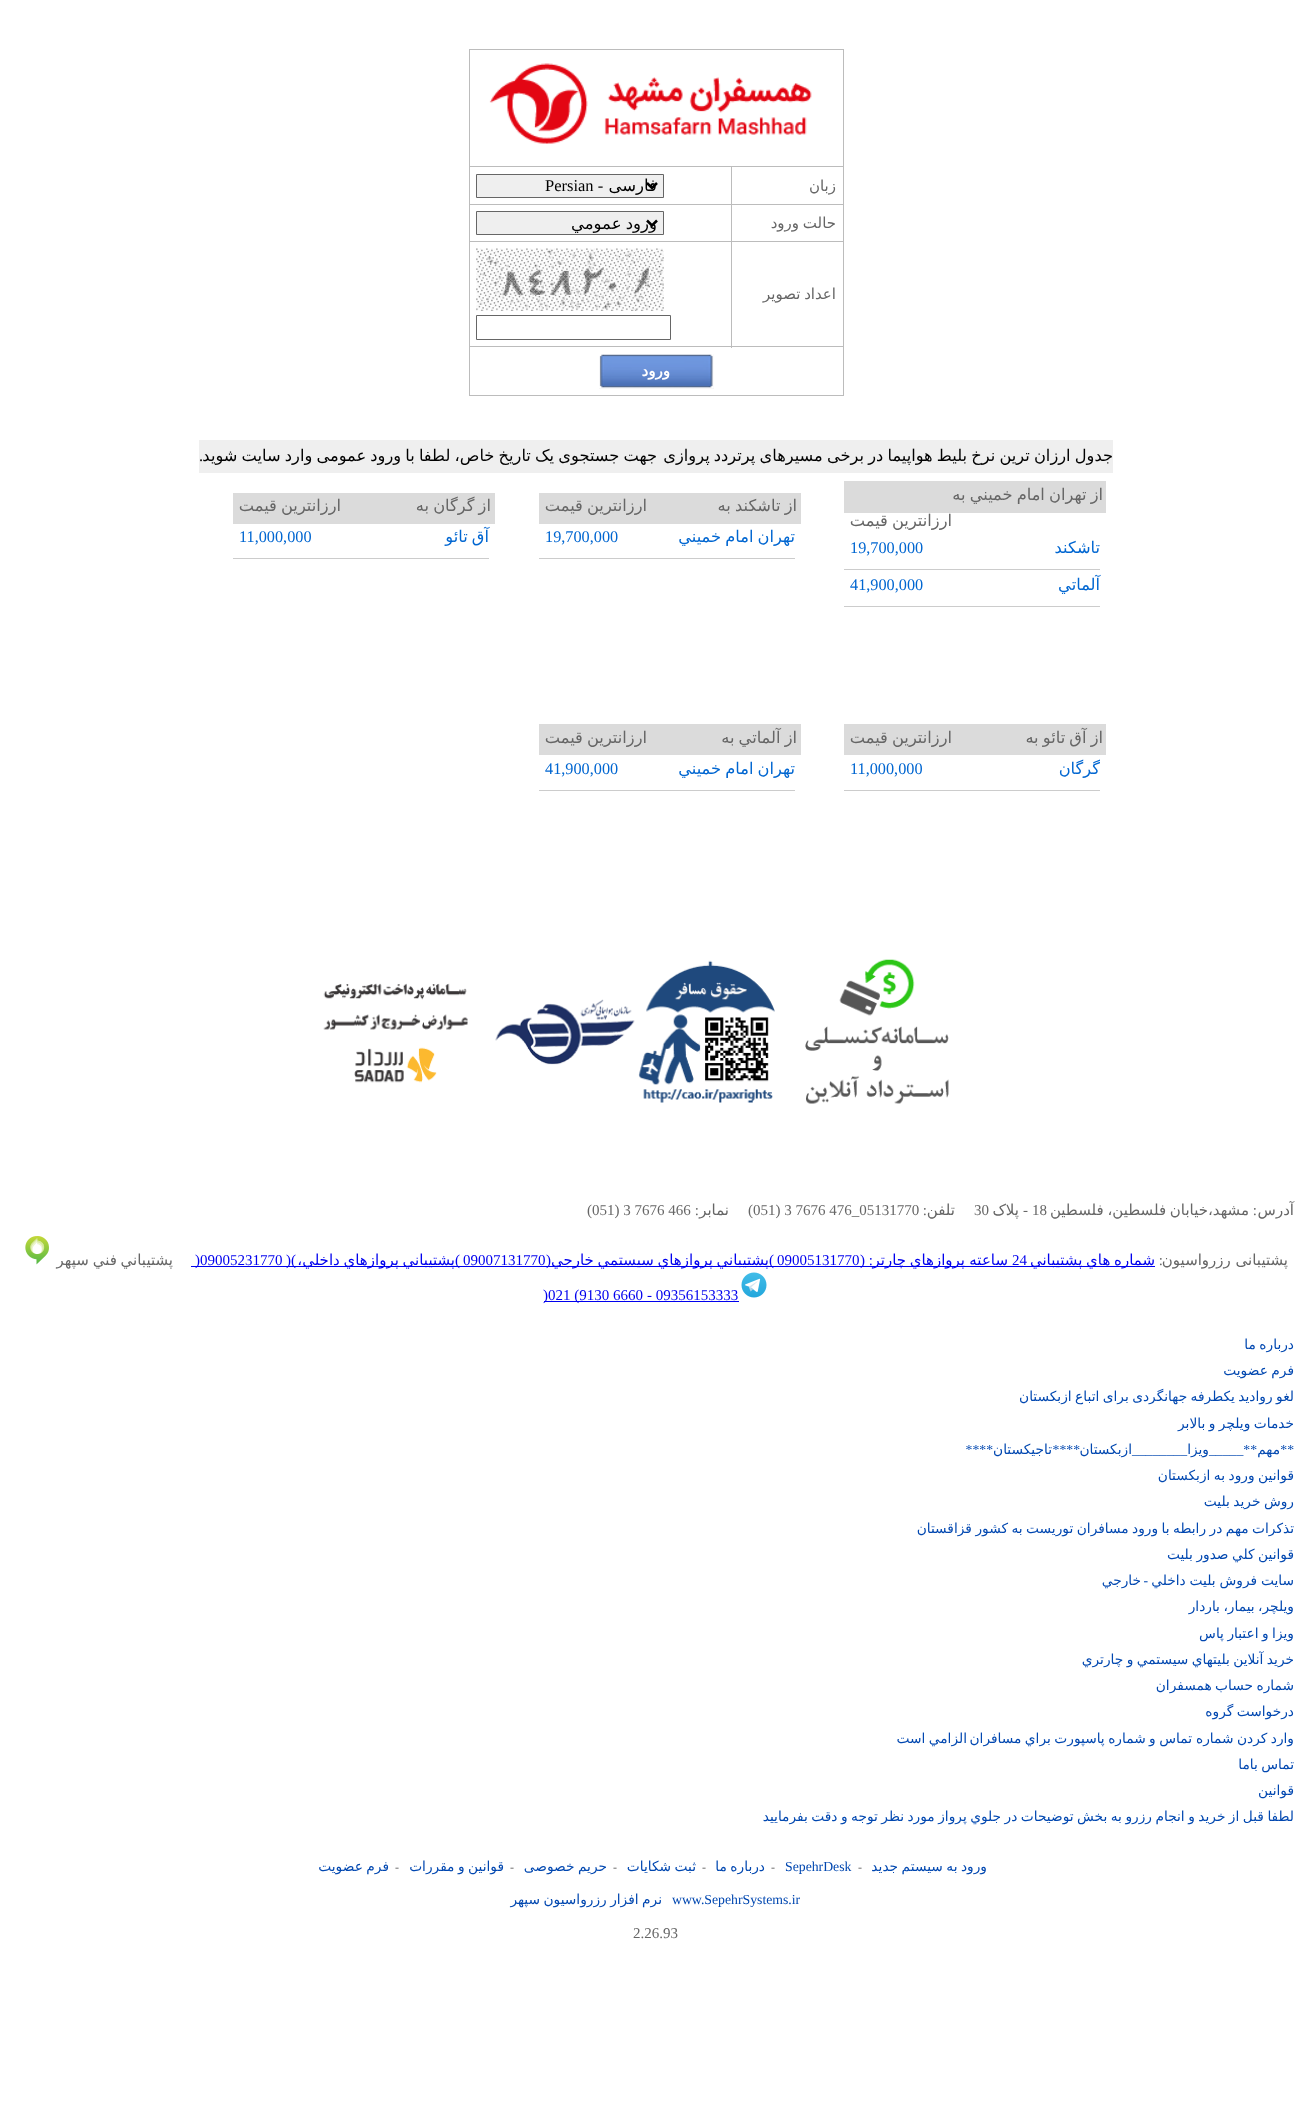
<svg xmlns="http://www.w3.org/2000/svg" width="1313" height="2105">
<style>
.a{font:15px DejaVu Sans;direction:rtl;fill:#666}
.b{font:16.5px DejaVu Sans;direction:rtl;fill:#000}
.c{font:16.5px Liberation Serif;fill:#000}
.d{font:bold 15px DejaVu Sans;direction:rtl;fill:#fff}
.e{font:16.25px DejaVu Sans;direction:rtl;fill:#000}
.f{font:16.25px Liberation Serif;direction:rtl;fill:#000}
.g{font:16.25px DejaVu Sans;direction:rtl;fill:#666}
.h{font:16.25px DejaVu Sans;direction:rtl;fill:#0066d1}
.i{font:16.25px Liberation Serif;fill:#0066d1}
.j{font:15px Liberation Serif;direction:rtl;fill:#666}
.k{font:15px Liberation Serif;fill:#666}
.l{font:15px DejaVu Sans;direction:rtl;fill:#00e}
.m{font:15px Liberation Serif;direction:rtl;fill:#00e}
.n{font:15px Liberation Serif;fill:#00e}
.o{font:13.75px DejaVu Sans;direction:rtl;fill:#0147b0}
.p{font:13.75px Liberation Serif;direction:rtl;fill:#0147b0}
.q{font:12px Liberation Serif;fill:#666}
.r{font:13.75px Liberation Serif;fill:#0147b0}
</style>
<rect width="100%" height="100%" fill="#fff"/>
<path fill="#bcbcbc" d="M469 49h375v1H469z"/>
<path fill="#bcbcbc" d="M843 49h1v347H843z"/>
<path fill="#bcbcbc" d="M469 395h375v1H469z"/>
<path fill="#bcbcbc" d="M469 49h1v347H469z"/>
<image href="1.png" x="489" y="63" width="323" height="81"/>
<path fill="#bcbcbc" d="M469 166h264v1H469z"/>
<path fill="#bcbcbc" d="M469 204h264v1H469z"/>
<path fill="#bcbcbc" d="M469 241h264v1H469z"/>
<path fill="#bcbcbc" d="M469 346h375v1H469z"/>
<path fill="#bcbcbc" d="M731 241h1v107H731z"/>
<path fill="#bcbcbc" d="M731 241h113v1H731z"/>
<path fill="#bcbcbc" d="M731 204h1v39H731z"/>
<path fill="#bcbcbc" d="M731 204h113v1H731z"/>
<path fill="#bcbcbc" d="M731 166h1v39H731z"/>
<path fill="#bcbcbc" d="M731 166h113v1H731z"/>
<path fill="#efefef" stroke="#666" d="M476.5 174.5h187v23H476.5z"/>
<path fill="none" stroke="#000" stroke-width="2.5" d="M647 183l5 5l5-5"/>
<path fill="#efefef" stroke="#666" d="M476.5 211.5h187v23H476.5z"/>
<path fill="none" stroke="#000" stroke-width="2.5" d="M647 220.5l5 5l5-5"/>
<image href="2.png" x="476" y="248" width="188" height="63"/>
<path fill="none" stroke="#666" d="M476.5 315.5h194v24H476.5z"/>
<path fill="#efefef" d="M599 354h115v35H599z"/>
<image href="3.png" x="599" y="354" width="115" height="35"/>
<path fill="#efefef" d="M199 440h914v33H199z"/>
<path fill="#dbdbdb" d="M844 481h262v32H844z"/>
<path fill="#ccc" d="M844 569h256v1H844z"/>
<path fill="#ccc" d="M844 606h256v1H844z"/>
<path fill="#dbdbdb" d="M539 493h262v31H539z"/>
<path fill="#ccc" d="M539 558h256v1H539z"/>
<path fill="#dbdbdb" d="M233 493h262v31H233z"/>
<path fill="#ccc" d="M233 558h256v1H233z"/>
<path fill="#dbdbdb" d="M844 724h262v31H844z"/>
<path fill="#ccc" d="M844 790h256v1H844z"/>
<path fill="#dbdbdb" d="M539 724h262v31H539z"/>
<path fill="#ccc" d="M539 790h256v1H539z"/>
<image href="4.png" x="805" y="959" width="144" height="145"/>
<image href="5.png" x="638" y="960" width="137" height="143"/>
<image href="6.png" x="495" y="999" width="140" height="66"/>
<image href="7.png" x="323" y="983" width="145" height="100"/>
<path fill="#00e" d="M191 1266h964v1H191z"/>
<image href="8.png" x="25" y="1236" width="24" height="29"/>
<image href="9.png" x="741" y="1272" width="26" height="26"/>
<path fill="#00e" d="M644 1301h95v1H644z"/>
<path fill="#00e" d="M544 1301h100v1H544z"/>
<text class="a" x="836" y="191">زبان</text>
<text class="b" x="657" y="191">فارسی</text>
<text class="c" x="545" y="191">Persian -</text>
<text class="a" x="836" y="228" word-spacing="-1">حالت ورود</text>
<text class="b" x="657" y="229" word-spacing="-1">ورود عمومي</text>
<text class="a" x="836" y="299" word-spacing="-1">اعداد تصوير</text>
<text class="d" x="670" y="376">ورود</text>
<text class="e" x="657" y="461" word-spacing="-1">جهت جستجوی یک تاریخ خاص، لطفا با ورود عمومی وارد سایت شوید</text>
<text class="e" x="1113" y="461" word-spacing="-1">جدول ارزان ترین نرخ بلیط هواپیما در برخی مسیرهای پرتردد پروازی</text>
<text class="f" x="203" y="461">.</text>
<text class="g" x="1103" y="500" word-spacing="-1">از تهران امام خميني به</text>
<text class="g" x="952" y="526" word-spacing="-1">ارزانترین قیمت</text>
<text class="h" x="1100" y="553">تاشکند</text>
<text class="i" x="850" y="553">19,700,000</text>
<text class="h" x="1100" y="590">آلماتي</text>
<text class="i" x="850" y="590">41,900,000</text>
<text class="g" x="797" y="511" word-spacing="-1">از تاشکند به</text>
<text class="g" x="647" y="511" word-spacing="-1">ارزانترین قیمت</text>
<text class="h" x="795" y="542" word-spacing="-1">تهران امام خميني</text>
<text class="i" x="545" y="542">19,700,000</text>
<text class="g" x="491" y="511" word-spacing="-1">از گرگان به</text>
<text class="g" x="341" y="511" word-spacing="-1">ارزانترین قیمت</text>
<text class="h" x="489" y="542" word-spacing="-1">آق تائو</text>
<text class="i" x="239" y="542">11,000,000</text>
<text class="g" x="1103" y="743" word-spacing="-1">از آق تائو به</text>
<text class="g" x="952" y="743" word-spacing="-1">ارزانترین قیمت</text>
<text class="h" x="1100" y="774">گرگان</text>
<text class="i" x="850" y="774">11,000,000</text>
<text class="g" x="797" y="743" word-spacing="-1">از آلماتي به</text>
<text class="g" x="647" y="743" word-spacing="-1">ارزانترین قیمت</text>
<text class="h" x="795" y="774" word-spacing="-1">تهران امام خميني</text>
<text class="i" x="545" y="774">41,900,000</text>
<text class="a" x="1294" y="1215">آدرس</text>
<text class="j" x="1257" y="1215">:</text>
<text class="a" x="1249" y="1215" word-spacing="-1">مشهد،خيابان فلسطين، فلسطين</text>
<text class="k" x="1032" y="1215">18</text>
<text class="j" x="1028" y="1215">-</text>
<text class="a" x="1019" y="1215">پلاک</text>
<text class="k" x="974" y="1215">30</text>
<text class="a" x="955" y="1215">تلفن</text>
<text class="j" x="927" y="1215">:</text>
<text class="k" x="748" y="1215">(051) 3 7676 476_05131770</text>
<text class="a" x="729" y="1215">نمابر</text>
<text class="j" x="699" y="1215">:</text>
<text class="k" x="587" y="1215">(051) 3 7676 466</text>
<text class="a" x="1288" y="1265">پشتیبانی رزرواسیون</text>
<text class="j" x="1163" y="1265">:</text>
<text class="l" x="1155" y="1265" word-spacing="-1">شماره هاي پشتيباني</text>
<text class="l" x="1008" y="1265">ساعته</text>
<text class="l" x="965" y="1265">پروازهاي</text>
<text class="l" x="769" y="1265" word-spacing="-1">پشتيباني پروازهاي سيستمي خارجي</text>
<text class="m" x="551" y="1265">(</text>
<text class="l" x="455" y="1265" word-spacing="-1">پشتيباني پروازهاي داخلي،</text>
<text class="m" x="460" y="1265">)</text>
<text class="m" x="296" y="1265">)(</text>
<text class="n" x="195" y="1265">)09005231770</text>
<text class="n" x="1012" y="1265">24</text>
<text class="m" x="873" y="1265">: (</text>
<text class="l" x="906" y="1265">چارتر</text>
<text class="n" x="777" y="1265">09005131770</text>
<text class="m" x="774" y="1265">)</text>
<text class="n" x="463" y="1265">09007131770</text>
<text class="a" x="173" y="1265" word-spacing="-1">پشتيباني فني سپهر</text>
<text class="n" x="647" y="1300">- 09356153333</text>
<text class="n" x="543" y="1300">)021 (9130 6660</text>
<text class="o" x="1294" y="1349" word-spacing="-0.9">درباره ما</text>
<text class="o" x="1294" y="1375" word-spacing="-0.9">فرم عضويت</text>
<text class="o" x="1294" y="1401" word-spacing="-0.9">لغو روادید یکطرفه جهانگردی برای اتباع ازبکستان</text>
<text class="o" x="1294" y="1428" word-spacing="-0.9">خدمات ویلچر و بالابر</text>
<text class="p" x="1294" y="1454">**</text>
<text class="p" x="1257" y="1454">**_____</text>
<text class="o" x="1209" y="1454">ويزا</text>
<text class="o" x="1132" y="1454">ازبکستان</text>
<text class="p" x="1080" y="1454">****</text>
<text class="o" x="1052" y="1454">تاجیکستان</text>
<text class="p" x="993" y="1454">****</text>
<text class="o" x="1280" y="1454">مهم</text>
<text class="p" x="1187" y="1454">________</text>
<text class="o" x="1294" y="1480" word-spacing="-0.9">قوانین ورود به ازبکستان</text>
<text class="o" x="1294" y="1506" word-spacing="-0.9">روش خرید بلیت</text>
<text class="o" x="1294" y="1533" word-spacing="-0.9">تذکرات مهم در رابطه با ورود مسافران توریست به کشور قزاقستان</text>
<text class="o" x="1294" y="1559" word-spacing="-0.9">قوانين کلي صدور بليت</text>
<text class="o" x="1294" y="1585" word-spacing="-0.5">سايت فروش بليت داخلي</text>
<text class="p" x="1148" y="1585">-</text>
<text class="o" x="1141" y="1585">خارجي</text>
<text class="o" x="1294" y="1611" word-spacing="-0.9">ويلچر، بيمار، باردار</text>
<text class="o" x="1294" y="1638" word-spacing="-0.9">ويزا و اعتبار پاس</text>
<text class="o" x="1294" y="1664" word-spacing="-0.9">خريد آنلاين بليتهاي سيستمي و چارتري</text>
<text class="o" x="1294" y="1690" word-spacing="-0.9">شماره حساب همسفران</text>
<text class="o" x="1294" y="1716" word-spacing="-0.9">درخواست گروه</text>
<text class="o" x="1294" y="1743" word-spacing="-0.9">وارد کردن شماره</text>
<text class="o" x="1192" y="1743" word-spacing="-0.9">تماس و شماره پاسپورت براي مسافران</text>
<text class="o" x="967" y="1743" word-spacing="-0.9">الزامي است</text>
<text class="o" x="1294" y="1769" word-spacing="-0.9">تماس باما</text>
<text class="o" x="1294" y="1795">قوانين</text>
<text class="o" x="1294" y="1821" word-spacing="-0.9">لطفا قبل از خريد و انجام رزرو به بخش توضيحات در جلوي پرواز مورد نظر توجه و دقت بفرماييد</text>
<text class="o" x="987" y="1871" word-spacing="-0.9">ورود به سیستم جدید</text>
<text class="q" x="858" y="1871">-</text>
<text class="r" x="785" y="1871">SepehrDesk</text>
<text class="q" x="771" y="1871">-</text>
<text class="o" x="765" y="1871" word-spacing="-0.9">درباره ما</text>
<text class="q" x="702" y="1871">-</text>
<text class="o" x="696" y="1871" word-spacing="-0.9">ثبت شکایات</text>
<text class="q" x="613" y="1871">-</text>
<text class="o" x="607" y="1871" word-spacing="-0.9">حریم خصوصی</text>
<text class="q" x="510" y="1871">-</text>
<text class="o" x="504" y="1871" word-spacing="-0.9">قوانین و مقررات</text>
<text class="q" x="395" y="1871">-</text>
<text class="o" x="389" y="1871" word-spacing="-0.9">فرم عضويت</text>
<text class="r" x="672" y="1904">www.SepehrSystems.ir</text>
<text class="o" x="662" y="1904" word-spacing="-0.9">نرم افزار رزرواسيون سپهر</text>
<text class="k" x="633" y="1938">2.26.93</text>
</svg>
